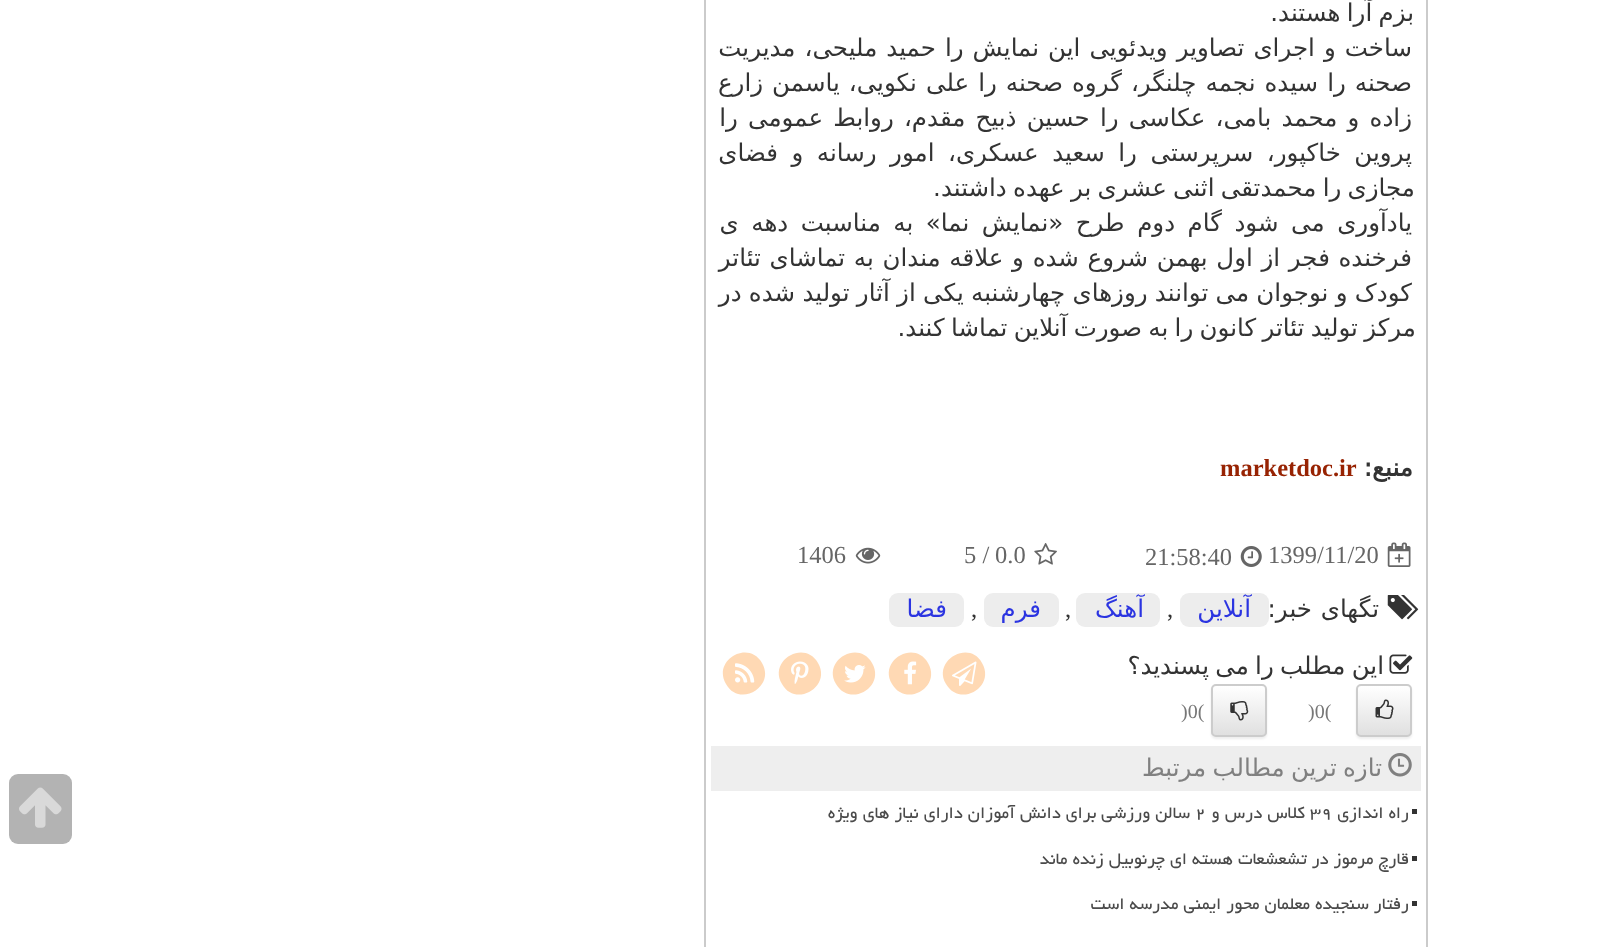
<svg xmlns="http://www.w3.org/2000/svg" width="1606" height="947">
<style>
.a{font:24.5px DejaVu Sans;direction:rtl;fill:#333}
.b{font:bold 24.5px DejaVu Sans;direction:rtl;fill:#333}
.c{font:bold 24.5px Liberation Serif;fill:#972303}
.d{font:24.5px Liberation Serif;fill:#666}
.e{font:24.5px DejaVu Sans;direction:rtl;fill:#2b34e1}
.f{font:24.5px Liberation Serif;fill:#333}
.g{font:20px Liberation Serif;fill:#777}
.h{font:24.5px DejaVu Sans;direction:rtl;fill:#808080}
.i{font:21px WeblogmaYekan;direction:rtl;fill:#4a4a4a}
.j{font:21px WeblogmaYekan;fill:#4a4a4a}
</style>
<defs>
<clipPath id="clip1"><rect x="1356" y="684" width="56" height="53" rx="5"/></clipPath>
<linearGradient id="g1" gradientUnits="userSpaceOnUse" x1="1384" y1="686" x2="1384" y2="735"><stop offset="0" stop-color="#fff"/><stop offset="1" stop-color="#e0e0e0"/></linearGradient>
<clipPath id="clip2"><rect x="1211" y="684" width="56" height="53" rx="5"/></clipPath>
<linearGradient id="g2" gradientUnits="userSpaceOnUse" x1="1239" y1="686" x2="1239" y2="735"><stop offset="0" stop-color="#fff"/><stop offset="1" stop-color="#e0e0e0"/></linearGradient>
</defs>
<rect width="100%" height="100%" fill="#fff"/>
<path fill="none" stroke="#cbcbcb" stroke-width="2" d="M705 -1h722v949H705z"/>
<image href="1.png" x="1387" y="542" width="24" height="25"/>
<image href="2.png" x="1240" y="546" width="22" height="21"/>
<image href="3.png" x="1034" y="543" width="23" height="22"/>
<image href="4.png" x="855" y="547" width="26" height="17"/>
<image href="5.png" x="1387" y="595" width="32" height="25"/>
<rect fill="#ededed" x="1180" y="593" width="89" height="34" rx="9"/>
<rect fill="#ededed" x="1076" y="593" width="84" height="34" rx="9"/>
<rect fill="#ededed" x="984" y="593" width="75" height="34" rx="9"/>
<rect fill="#ededed" x="889" y="593" width="75" height="34" rx="9"/>
<image href="6.png" x="1389" y="654" width="24" height="20"/>
<rect fill="#00000012" filter="blur(1px)" x="1356" y="686" width="56" height="53" rx="5"/>
<g clip-path="url(#clip1)">
<path fill="url(#g1)" d="M1356 686h56v49H1356z"/>
</g>
<path fill="#ffffff26" d="M1362 688h38c2 0 10-2 10 3v43c1-1 1-2 1-3v-41c0-2-2-4-4-4h-45c-2 0-4 2-4 4v1c0-2 2-3 4-3z"/>
<rect fill="none" stroke="#ccc" stroke-width="2" x="1357" y="685" width="54" height="51" rx="4"/>
<image href="7.png" x="1375" y="699" width="19" height="20"/>
<rect fill="#00000012" filter="blur(1px)" x="1211" y="686" width="56" height="53" rx="5"/>
<g clip-path="url(#clip2)">
<path fill="url(#g2)" d="M1211 686h56v49H1211z"/>
</g>
<rect fill="none" stroke="#ccc" stroke-width="2" x="1212" y="685" width="54" height="51" rx="4"/>
<image href="8.png" x="1230" y="701" width="19" height="20"/>
<path fill="#ffd9b4" d="M982 663c14 24-22 45-36 21c-14-23 23-45 36-21z"/>
<image href="9.png" x="952" y="661" width="25" height="25"/>
<path fill="#ffd9b4" d="M928 663c14 24-22 45-36 21c-14-23 22-45 36-21z"/>
<image href="10.png" x="904" y="661" width="13" height="24"/>
<path fill="#ffd9b4" d="M872 663c14 24-22 45-36 21c-14-23 22-45 36-21z"/>
<image href="11.png" x="844" y="665" width="22" height="18"/>
<path fill="#ffd9b4" d="M818 663c14 24-23 45-36 21c-14-23 22-45 36-21z"/>
<image href="12.png" x="791" y="661" width="18" height="23"/>
<path fill="#ffd9b4" d="M762 663c14 24-23 45-36 21c-14-23 22-45 36-21z"/>
<image href="13.png" x="735" y="663" width="20" height="20"/>
<path fill="#eee" d="M711 746h710v45H711z"/>
<image href="14.png" x="1388" y="753" width="24" height="24"/>
<path fill="#333" d="M1412 809h5v5H1412z"/>
<path fill="#333" d="M1412 856h5v5H1412z"/>
<path fill="#333" d="M1412 901h5v5H1412z"/>
<rect fill="#b3b3b3" x="9" y="774" width="63" height="70" rx="9"/>
<image href="15.png" x="19" y="787" width="43" height="41"/>
<text class="a" x="1414" y="21" word-spacing="-1.5">بزم آرا هستند.</text>
<text class="a" x="1412" y="56" word-spacing="1.25">ساخت و اجرای تصاویر ویدئویی این نمایش را حمید ملیحی، مدیریت</text>
<text class="a" x="1412" y="91" word-spacing="1.25">صحنه را سیده نجمه چلنگر، گروه صحنه را علی نکویی، یاسمن زارع</text>
<text class="a" x="1412" y="126" word-spacing="2.4">زاده و محمد بامی، عکاسی را حسین ذبیح مقدم، روابط عمومی را</text>
<text class="a" x="1412" y="161" word-spacing="5.75">پروین خاکپور، سرپرستی را سعید عسکری، امور رسانه و فضای</text>
<text class="a" x="1415" y="196" word-spacing="-1.5">مجازی را محمدتقی اثنی عشری بر عهده داشتند.</text>
<text class="a" x="1412" y="231" word-spacing="4.75">یادآوری می شود گام دوم طرح «نمایش نما» به مناسبت دهه ی</text>
<text class="a" x="1412" y="266" word-spacing="0.9">فرخنده فجر از اول بهمن شروع شده و علاقه مندان به تماشای تئاتر</text>
<text class="a" x="1412" y="301" word-spacing="-0.5">کودک و نوجوان می توانند روزهای چهارشنبه یکی از آثار تولید شده در</text>
<text class="a" x="1416" y="336" word-spacing="-1.5">مرکز تولید تئاتر کانون را به صورت آنلاین تماشا کنند.</text>
<text class="b" x="1413" y="476">منبع:</text>
<text class="c" x="1220" y="476">marketdoc.ir</text>
<text class="d" x="1268" y="563">1399/11/20</text>
<text class="d" x="1145" y="565">21:58:40</text>
<text class="d" x="995" y="563">0.0</text>
<text class="d" x="964" y="563">5 /</text>
<text class="d" x="797" y="563">1406</text>
<text class="a" x="1379" y="617" word-spacing="1">تگهای خبر:</text>
<text class="e" x="1251" y="617">آنلاین</text>
<text class="f" x="1167" y="617">,</text>
<text class="e" x="1144" y="617">آهنگ</text>
<text class="f" x="1065" y="617">,</text>
<text class="e" x="1041" y="617">فرم</text>
<text class="f" x="971" y="617">,</text>
<text class="e" x="947" y="617">فضا</text>
<text class="a" x="1384" y="674" word-spacing="-1.5">این مطلب را می پسندید؟</text>
<text class="g" x="1308" y="718">)0(</text>
<text class="g" x="1181" y="718">)0(</text>
<text class="h" x="1382" y="776" word-spacing="-1.5">تازه ترین مطالب مرتبط</text>
<text class="i" x="1409" y="818">راه اندازی</text>
<text class="j" x="1310" y="818">۳۹</text>
<text class="i" x="1305" y="818">کلاس درس و</text>
<text class="j" x="1195" y="818">۲</text>
<text class="i" x="1190" y="818">سالن ورزشی برای دانش آموزان دارای نیاز های ویژه</text>
<text class="i" x="1409" y="864">قارچ مرموز در تشعشعات هسته ای چرنوبیل زنده ماند</text>
<text class="i" x="1409" y="909">رفتار سنجیده معلمان محور ایمنی مدرسه است</text>
</svg>
